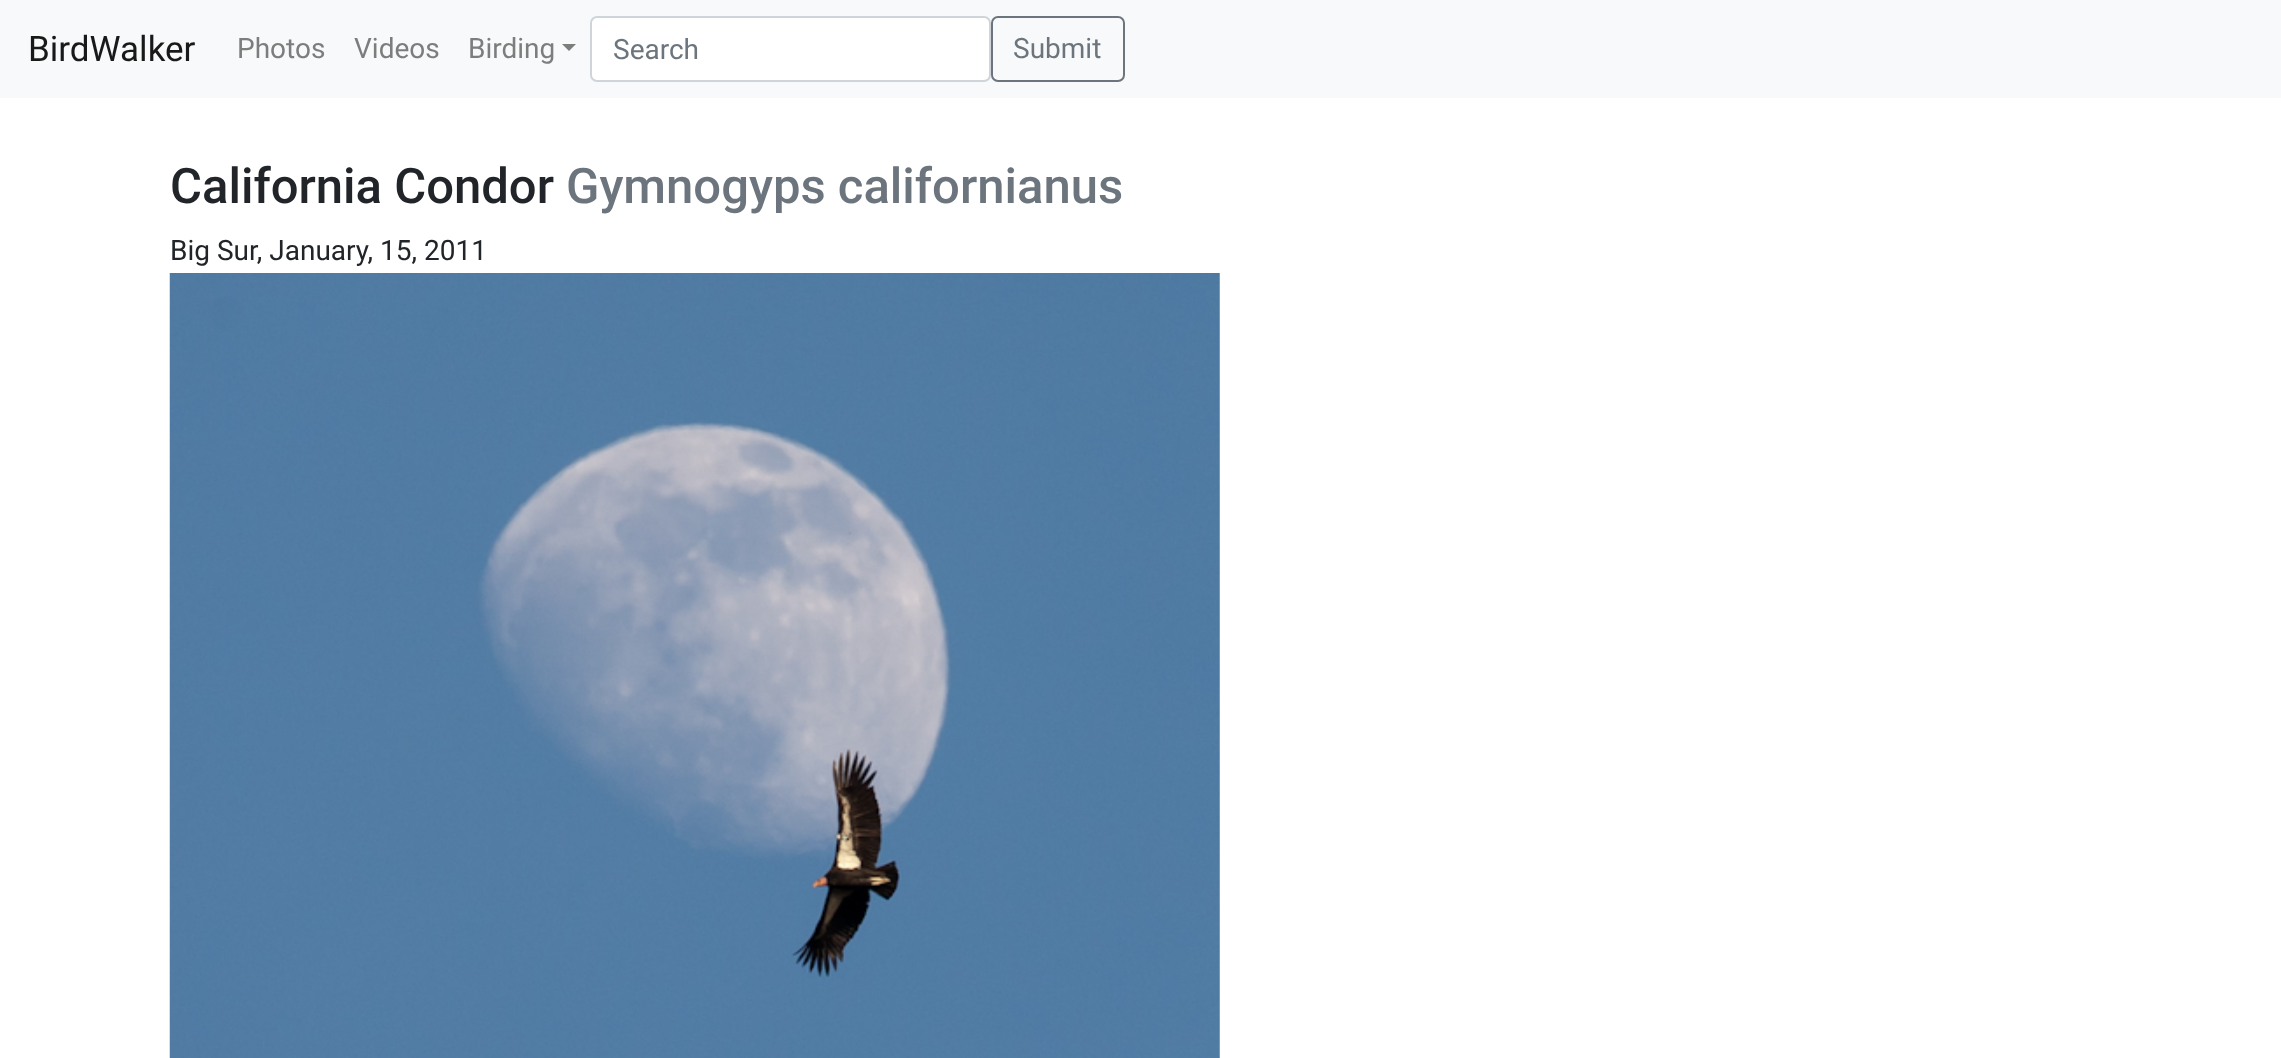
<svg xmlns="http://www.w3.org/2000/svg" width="2281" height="1058">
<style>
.a{font:35px Roboto;fill:#191919}
.b{font:28px Roboto;fill:#7c7d7d}
.c{font:28px Roboto;fill:#6c757d}
.d{font:500 49px Roboto;fill:#212529}
.e{font:500 49px Roboto;fill:#6c757d}
.f{font:28px Roboto;fill:#212529}
</style>
<rect width="100%" height="100%" fill="#fff"/>
<path fill="#f8f9fa" d="M0 0h2281v98H0z"/>
<path fill="#7c7d7d" d="M562 44h14l-7 7z"/>
<rect fill="#fff" stroke="#ced4da" stroke-width="2" x="591" y="17" width="399" height="64" rx="6"/>
<rect fill="none" stroke="#6c757d" stroke-width="2" x="992" y="17" width="132" height="64" rx="6"/>
<image href="1.png" x="169" y="273" width="1051" height="785"/>
<text class="a" x="28" y="61">BirdWalker</text>
<text class="b" x="237" y="58">Photos</text>
<text class="b" x="354" y="58">Videos</text>
<text class="b" x="468" y="58">Birding</text>
<text class="c" x="613" y="59">Search</text>
<text class="c" x="1013" y="58">Submit</text>
<text class="d" x="170" y="203">California Condor</text>
<text class="e" x="566" y="203">Gymnogyps californianus</text>
<text class="f" x="170" y="260">Big Sur, January, 15, 2011</text>
</svg>
